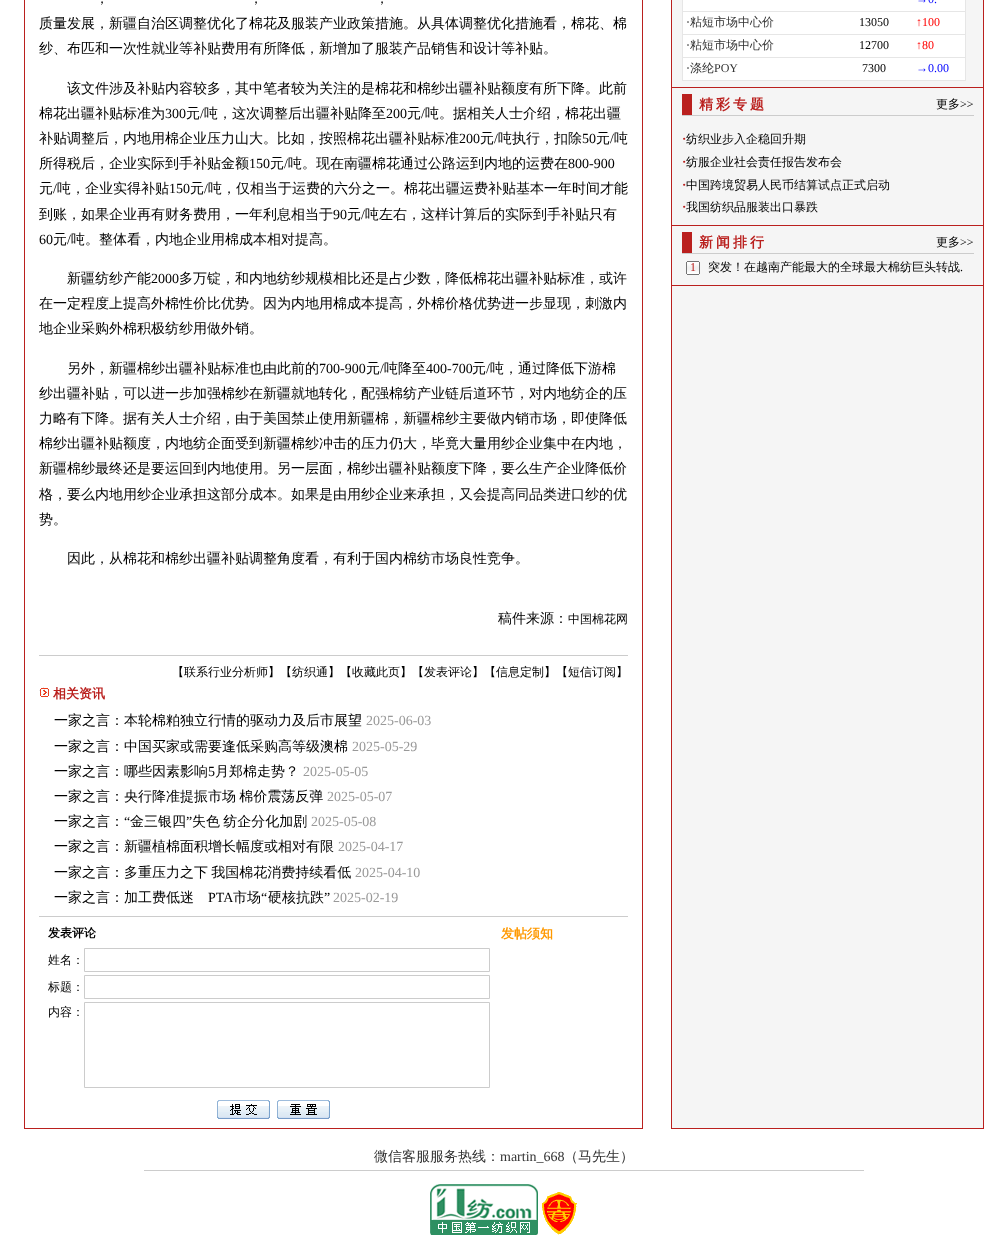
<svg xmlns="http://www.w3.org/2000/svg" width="1008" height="1235">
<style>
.a{font:500 14px WenQuanYi Zen Hei;fill:#000}
.b{font:14px Liberation Serif;fill:#000}
.c{font:500 12px WenQuanYi Zen Hei;fill:#000}
.d{font:bold 13px WenQuanYi Zen Hei;fill:#ba201e}
.e{font:14px Liberation Serif;fill:#999}
.f{font:bold 12px WenQuanYi Zen Hei;fill:#000}
.g{font:bold 13px WenQuanYi Zen Hei;fill:#f90}
.h{font:12px Liberation Serif;fill:#00f}
.i{font:12px Liberation Serif;fill:#000}
.j{font:500 12px WenQuanYi Zen Hei;fill:#333}
.k{font:12px Liberation Serif;fill:#f00}
.l{font:12px Liberation Serif;fill:#333}
.m{font:bold 14px WenQuanYi Zen Hei;letter-spacing:3px;fill:#ba201e}
.n{font:bold 13px Liberation Serif;fill:#ba201e}
.o{font:12px Liberation Serif;fill:#ba201e}
.p{font:500 14px WenQuanYi Zen Hei;fill:#333}
.q{font:14px Liberation Serif;fill:#333}
</style>
<rect width="100%" height="100%" fill="#fff"/>
<image href="1.png" x="24" y="0" width="960" height="1128"/>
<path fill="#ccc" d="M39 655h589v1H39z"/>
<image href="2.png" x="39" y="687" width="11" height="11"/>
<path fill="#ccc" d="M39 916h589v1H39z"/>
<path fill="none" stroke="#ccc" d="M84.5 948.5h405v23H84.5z"/>
<path fill="none" stroke="#ccc" d="M84.5 975.5h405v23H84.5z"/>
<path fill="none" stroke="#ccc" d="M84.5 1002.5h405v85H84.5z"/>
<image href="3.png" x="215" y="1098" width="57" height="22"/>
<image href="4.png" x="275" y="1098" width="57" height="22"/>
<path fill="#e6e6e6" d="M682 0h284v81H682z"/>
<path fill="#fff" d="M683 0h282v11H683z"/>
<path fill="#fff" d="M683 12h282v22H683z"/>
<path fill="#fff" d="M683 35h282v22H683z"/>
<path fill="#fff" d="M683 58h282v22H683z"/>
<path fill="#ba201e" d="M672 87h312v1H672z"/>
<path fill="#ba201e" d="M682 94h10v21H682z"/>
<path fill="#ccc" d="M682 115h292v1H682z"/>
<path fill="#ba201e" d="M672 225h312v1H672z"/>
<path fill="#ba201e" d="M682 232h10v21H682z"/>
<path fill="#ccc" d="M682 253h292v1H682z"/>
<image href="5.png" x="686" y="261" width="14" height="14"/>
<path fill="#ba201e" d="M672 285h312v1H672z"/>
<image href="6.png" x="24" y="1128" width="960" height="1"/>
<path fill="#ccc" d="M144 1170h720v1H144z"/>
<image href="7.png" x="430" y="1184" width="108" height="51"/>
<image href="8.png" x="542" y="1192" width="35" height="43"/>
<text class="a" x="95" y="3">，</text>
<text class="a" x="249" y="3">，</text>
<text class="a" x="375" y="3">，</text>
<text class="a" x="39" y="28">质量发展，新疆自治区调整优化了棉花及服装产业政策措施。从具体调整优化措施看，棉花、棉</text>
<text class="a" x="39" y="53">纱、布匹和一次性就业等补贴费用有所降低，新增加了服装产品销售和设计等补贴。</text>
<text class="a" x="67" y="93">该文件涉及补贴内容较多，其中笔者较为关注的是棉花和棉纱出疆补贴额度有所下降。此前</text>
<text class="a" x="39" y="118">棉花出疆补贴标准为</text>
<text class="b" x="165" y="118">300</text>
<text class="a" x="186" y="118">元</text>
<text class="b" x="200" y="118">/</text>
<text class="a" x="204" y="118">吨，这次调整后出疆补贴降至</text>
<text class="b" x="386" y="118">200</text>
<text class="a" x="407" y="118">元</text>
<text class="b" x="421" y="118">/</text>
<text class="a" x="425" y="118">吨。据相关人士介绍，棉花出疆</text>
<text class="a" x="39" y="143">补贴调整后，内地用棉企业压力山大。比如，按照棉花出疆补贴标准</text>
<text class="b" x="459" y="143">200</text>
<text class="a" x="480" y="143">元</text>
<text class="b" x="494" y="143">/</text>
<text class="a" x="498" y="143">吨执行，扣除</text>
<text class="b" x="582" y="143">50</text>
<text class="a" x="596" y="143">元</text>
<text class="b" x="610" y="143">/</text>
<text class="a" x="614" y="143">吨</text>
<text class="a" x="39" y="168">所得税后，企业实际到手补贴金额</text>
<text class="b" x="249" y="168">150</text>
<text class="a" x="270" y="168">元</text>
<text class="b" x="284" y="168">/</text>
<text class="a" x="288" y="168">吨。现在南疆棉花通过公路运到内地的运费在</text>
<text class="b" x="568" y="168">800-900</text>
<text class="a" x="39" y="193">元</text>
<text class="b" x="53" y="193">/</text>
<text class="a" x="57" y="193">吨，企业实得补贴</text>
<text class="b" x="169" y="193">150</text>
<text class="a" x="190" y="193">元</text>
<text class="b" x="204" y="193">/</text>
<text class="a" x="208" y="193">吨，仅相当于运费的六分之一。棉花出疆运费补贴基本一年时间才能</text>
<text class="a" x="39" y="219">到账，如果企业再有财务费用，一年利息相当于</text>
<text class="b" x="333" y="219">90</text>
<text class="a" x="347" y="219">元</text>
<text class="b" x="361" y="219">/</text>
<text class="a" x="365" y="219">吨左右，这样计算后的实际到手补贴只有</text>
<text class="b" x="39" y="244">60</text>
<text class="a" x="53" y="244">元</text>
<text class="b" x="67" y="244">/</text>
<text class="a" x="71" y="244">吨。整体看，内地企业用棉成本相对提高。</text>
<text class="a" x="67" y="283">新疆纺纱产能</text>
<text class="b" x="151" y="283">2000</text>
<text class="a" x="179" y="283">多万锭，和内地纺纱规模相比还是占少数，降低棉花出疆补贴标准，或许</text>
<text class="a" x="39" y="308">在一定程度上提高外棉性价比优势。因为内地用棉成本提高，外棉价格优势进一步显现，刺激内</text>
<text class="a" x="39" y="333">地企业采购外棉积极纺纱用做外销。</text>
<text class="a" x="67" y="373">另外，新疆棉纱出疆补贴标准也由此前的</text>
<text class="b" x="319" y="373">700-900</text>
<text class="a" x="366" y="373">元</text>
<text class="b" x="380" y="373">/</text>
<text class="a" x="384" y="373">吨降至</text>
<text class="b" x="426" y="373">400-700</text>
<text class="a" x="472" y="373">元</text>
<text class="b" x="486" y="373">/</text>
<text class="a" x="490" y="373">吨，通过降低下游棉</text>
<text class="a" x="39" y="398">纱出疆补贴，可以进一步加强棉纱在新疆就地转化，配强棉纺产业链后道环节，对内地纺企的压</text>
<text class="a" x="39" y="423">力略有下降。据有关人士介绍，由于美国禁止使用新疆棉，新疆棉纱主要做内销市场，即使降低</text>
<text class="a" x="39" y="448">棉纱出疆补贴额度，内地纺企面受到新疆棉纱冲击的压力仍大，毕竟大量用纱企业集中在内地，</text>
<text class="a" x="39" y="473">新疆棉纱最终还是要运回到内地使用。另一层面，棉纱出疆补贴额度下降，要么生产企业降低价</text>
<text class="a" x="39" y="499">格，要么内地用纱企业承担这部分成本。如果是由用纱企业来承担，又会提高同品类进口纱的优</text>
<text class="a" x="39" y="524">势。</text>
<text class="a" x="67" y="563">因此，从棉花和棉纱出疆补贴调整角度看，有利于国内棉纺市场良性竞争。</text>
<text class="a" x="498" y="623">稿件来源：</text>
<text class="c" x="568" y="623">中国棉花网</text>
<text class="c" x="172" y="676">【联系行业分析师】</text>
<text class="c" x="280" y="676">【纺织通】</text>
<text class="c" x="340" y="676">【收藏此页】</text>
<text class="c" x="412" y="676">【发表评论】</text>
<text class="c" x="484" y="676">【信息定制】</text>
<text class="c" x="556" y="676">【短信订阅】</text>
<text class="d" x="53" y="698">相关资讯</text>
<text class="a" x="54" y="725">一家之言：本轮棉粕独立行情的驱动力及后市展望</text>
<text class="e" x="366" y="725">2025-06-03</text>
<text class="a" x="54" y="751">一家之言：中国买家或需要逢低采购高等级澳棉</text>
<text class="e" x="352" y="751">2025-05-29</text>
<text class="a" x="54" y="776">一家之言：哪些因素影响</text>
<text class="b" x="208" y="776">5</text>
<text class="a" x="215" y="776">月郑棉走势？</text>
<text class="e" x="303" y="776">2025-05-05</text>
<text class="a" x="54" y="801" word-spacing="-1">一家之言：央行降准提振市场 棉价震荡反弹</text>
<text class="e" x="327" y="801">2025-05-07</text>
<text class="a" x="54" y="826">一家之言：</text>
<text class="b" x="124" y="826">“</text>
<text class="a" x="130" y="826">金三银四</text>
<text class="b" x="186" y="826">”</text>
<text class="a" x="192" y="826" word-spacing="-1">失色 纺企分化加剧</text>
<text class="e" x="311" y="826">2025-05-08</text>
<text class="a" x="54" y="851">一家之言：新疆植棉面积增长幅度或相对有限</text>
<text class="e" x="338" y="851">2025-04-17</text>
<text class="a" x="54" y="877" word-spacing="-1">一家之言：多重压力之下 我国棉花消费持续看低</text>
<text class="e" x="355" y="877">2025-04-10</text>
<text class="a" x="54" y="902">一家之言：加工费低迷</text>
<text class="b" x="208" y="902">PTA</text>
<text class="a" x="233" y="902">市场</text>
<text class="b" x="261" y="902">“</text>
<text class="a" x="268" y="902">硬核抗跌</text>
<text class="b" x="324" y="902">”</text>
<text class="e" x="333" y="902">2025-02-19</text>
<text class="f" x="48" y="937">发表评论</text>
<text class="c" x="48" y="964">姓名：</text>
<text class="c" x="48" y="991">标题：</text>
<text class="c" x="48" y="1016">内容：</text>
<text class="g" x="501" y="938">发帖须知</text>
<text class="h" x="916" y="3">→0.</text>
<text class="i" x="686" y="26">·</text>
<text class="j" x="690" y="26">粘短市场中心价</text>
<text class="i" x="859" y="26">13050</text>
<text class="k" x="916" y="26">↑100</text>
<text class="i" x="686" y="49">·</text>
<text class="j" x="690" y="49">粘短市场中心价</text>
<text class="i" x="859" y="49">12700</text>
<text class="k" x="916" y="49">↑80</text>
<text class="i" x="686" y="72">·</text>
<text class="j" x="690" y="72">涤纶</text>
<text class="l" x="714" y="72">POY</text>
<text class="i" x="862" y="72">7300</text>
<text class="h" x="916" y="72">→0.00</text>
<text class="m" x="699" y="109">精彩专题</text>
<text class="c" x="936" y="108">更多</text>
<text class="i" x="960" y="108">&gt;&gt;</text>
<text class="n" x="682" y="143">·</text>
<text class="c" x="686" y="143">纺织业步入企稳回升期</text>
<text class="n" x="682" y="166">·</text>
<text class="c" x="686" y="166">纺服企业社会责任报告发布会</text>
<text class="n" x="682" y="189">·</text>
<text class="c" x="686" y="189">中国跨境贸易人民币结算试点正式启动</text>
<text class="n" x="682" y="211">·</text>
<text class="c" x="686" y="211">我国纺织品服装出口暴跌</text>
<text class="m" x="699" y="247">新闻排行</text>
<text class="c" x="936" y="246">更多</text>
<text class="i" x="960" y="246">&gt;&gt;</text>
<text class="o" x="690" y="271">1</text>
<text class="c" x="708" y="271">突发！在越南产能最大的全球最大棉纺巨头转战</text>
<text class="i" x="960" y="271">.</text>
<text class="p" x="374" y="1161">微信客服服务热线：</text>
<text class="q" x="500" y="1161">martin_668</text>
<text class="p" x="564" y="1161">（马先生）</text>
</svg>
